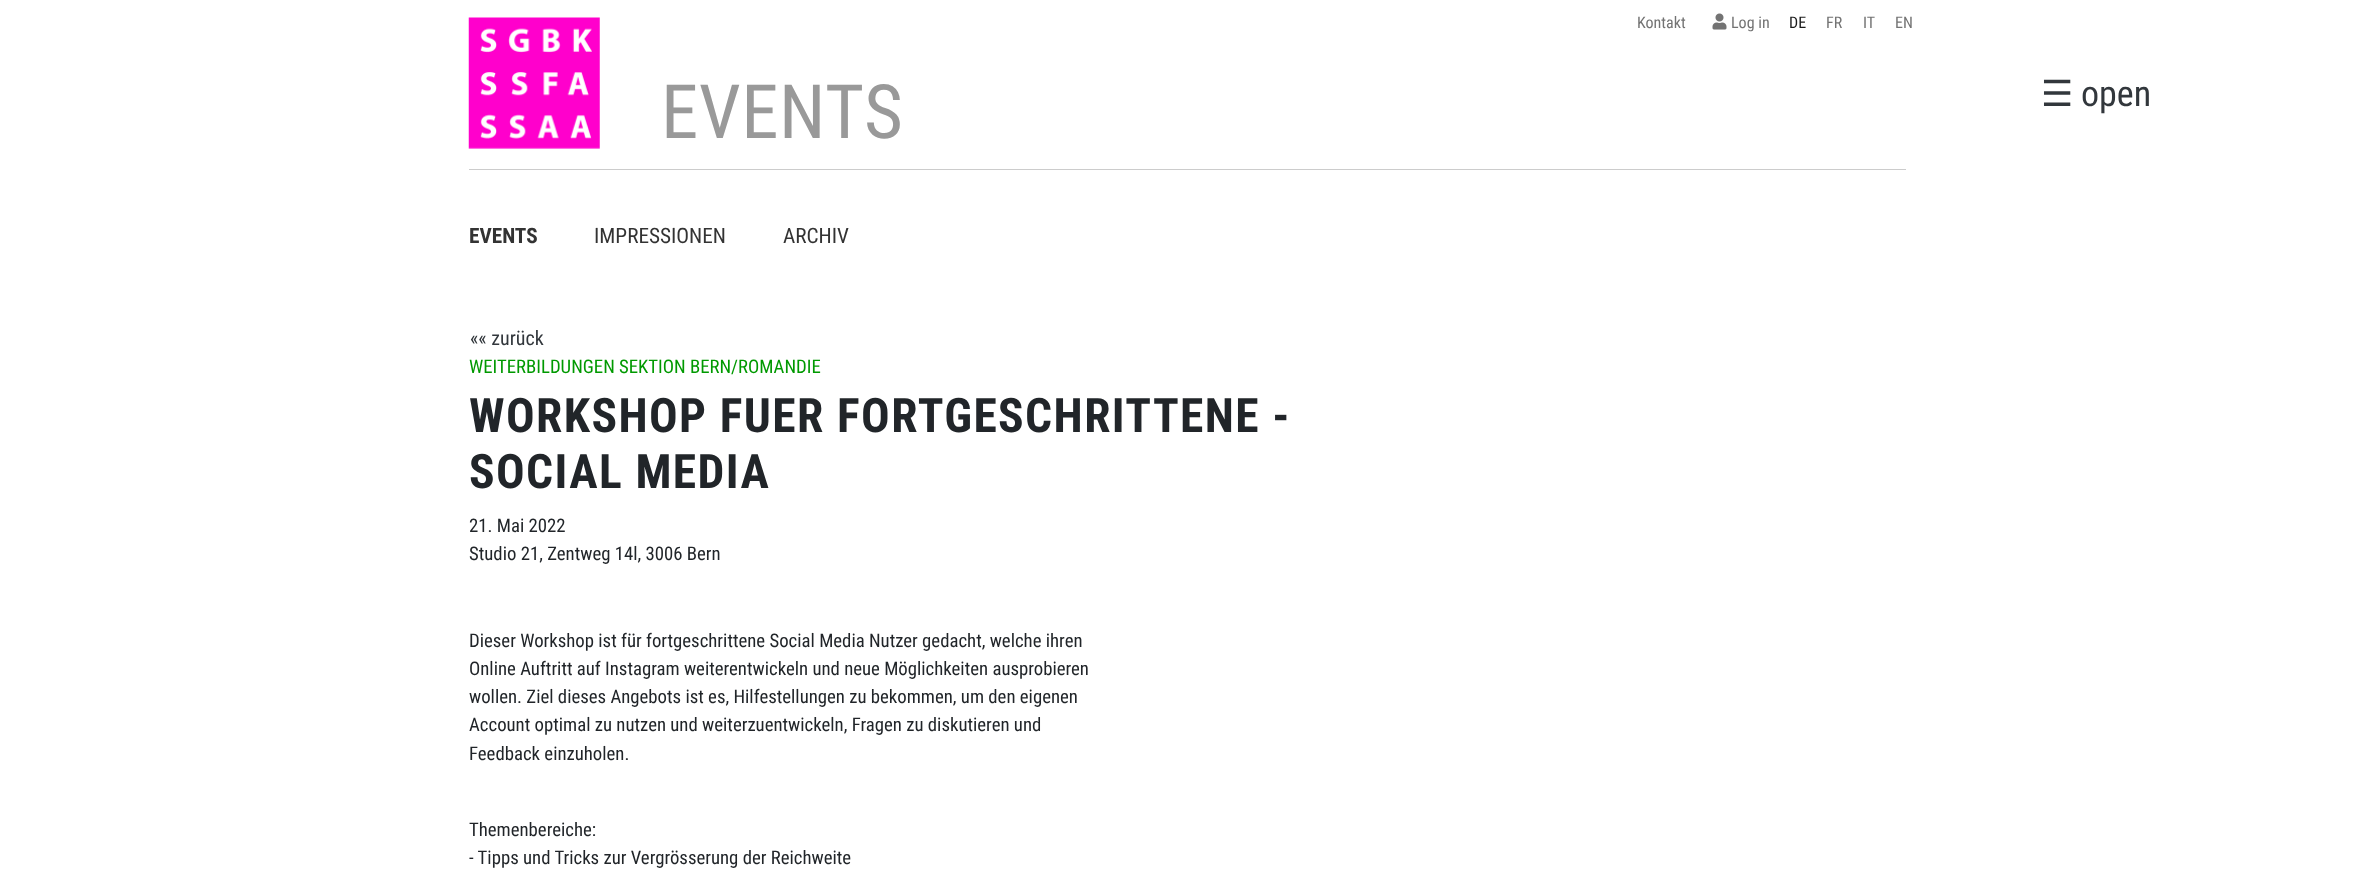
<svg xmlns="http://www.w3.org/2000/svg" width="2374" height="883">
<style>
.a{font:16px Roboto Condensed;fill:#737373}
.b{font:16px Roboto Condensed;fill:#1a1a1a}
.c{font:75px Roboto Condensed;letter-spacing:0.5px;fill:#999}
.d{font:36px DejaVu Sans;fill:#32373c}
.e{font:36px Roboto Condensed;fill:#32373c}
.f{font:bold 21.25px Roboto Condensed;fill:#333}
.g{font:21.25px Roboto Condensed;fill:#333}
.h{font:20px Roboto Condensed;fill:#32373c}
.i{font:18.75px Roboto Condensed;fill:#090}
.j{font:bold 47.5px Roboto Condensed;letter-spacing:1.4px;fill:#212529}
.k{font:18.75px Roboto Condensed;fill:#212529}
</style>
<rect width="100%" height="100%" fill="#fff"/>
<image href="1.png" x="1712" y="13" width="15" height="17"/>
<image href="2.png" x="468" y="17" width="132" height="132"/>
<path fill="#ccc" d="M469 169h1437v1H469z"/>
<text class="a" x="1637" y="28">Kontakt</text>
<text class="a" x="1731" y="28">Log in</text>
<text class="b" x="1789" y="28">DE</text>
<text class="a" x="1826" y="28">FR</text>
<text class="a" x="1863" y="28">IT</text>
<text class="a" x="1895" y="28">EN</text>
<text class="c" x="661" y="138">EVENTS</text>
<text class="d" x="2041" y="106">☰</text>
<text class="e" x="2081" y="106">open</text>
<text class="f" x="469" y="243">EVENTS</text>
<text class="g" x="594" y="243">IMPRESSIONEN</text>
<text class="g" x="783" y="243">ARCHIV</text>
<text class="h" x="470" y="345">«« zurück</text>
<text class="i" x="469" y="373">WEITERBILDUNGEN SEKTION BERN/ROMANDIE</text>
<text class="j" x="469" y="432">WORKSHOP FUER FORTGESCHRITTENE -</text>
<text class="j" x="469" y="488">SOCIAL MEDIA</text>
<text class="k" x="469" y="532">21. Mai 2022</text>
<text class="k" x="469" y="560">Studio 21, Zentweg 14l, 3006 Bern</text>
<text class="k" x="469" y="647">Dieser Workshop ist für fortgeschrittene Social Media Nutzer gedacht, welche ihren</text>
<text class="k" x="469" y="675">Online Auftritt auf Instagram weiterentwickeln und neue Möglichkeiten ausprobieren</text>
<text class="k" x="469" y="703">wollen. Ziel dieses Angebots ist es, Hilfestellungen zu bekommen, um den eigenen</text>
<text class="k" x="469" y="731">Account optimal zu nutzen und weiterzuentwickeln, Fragen zu diskutieren und</text>
<text class="k" x="469" y="760">Feedback einzuholen.</text>
<text class="k" x="469" y="836">Themenbereiche:</text>
<text class="k" x="469" y="864">- Tipps und Tricks zur Vergrösserung der Reichweite</text>
</svg>
